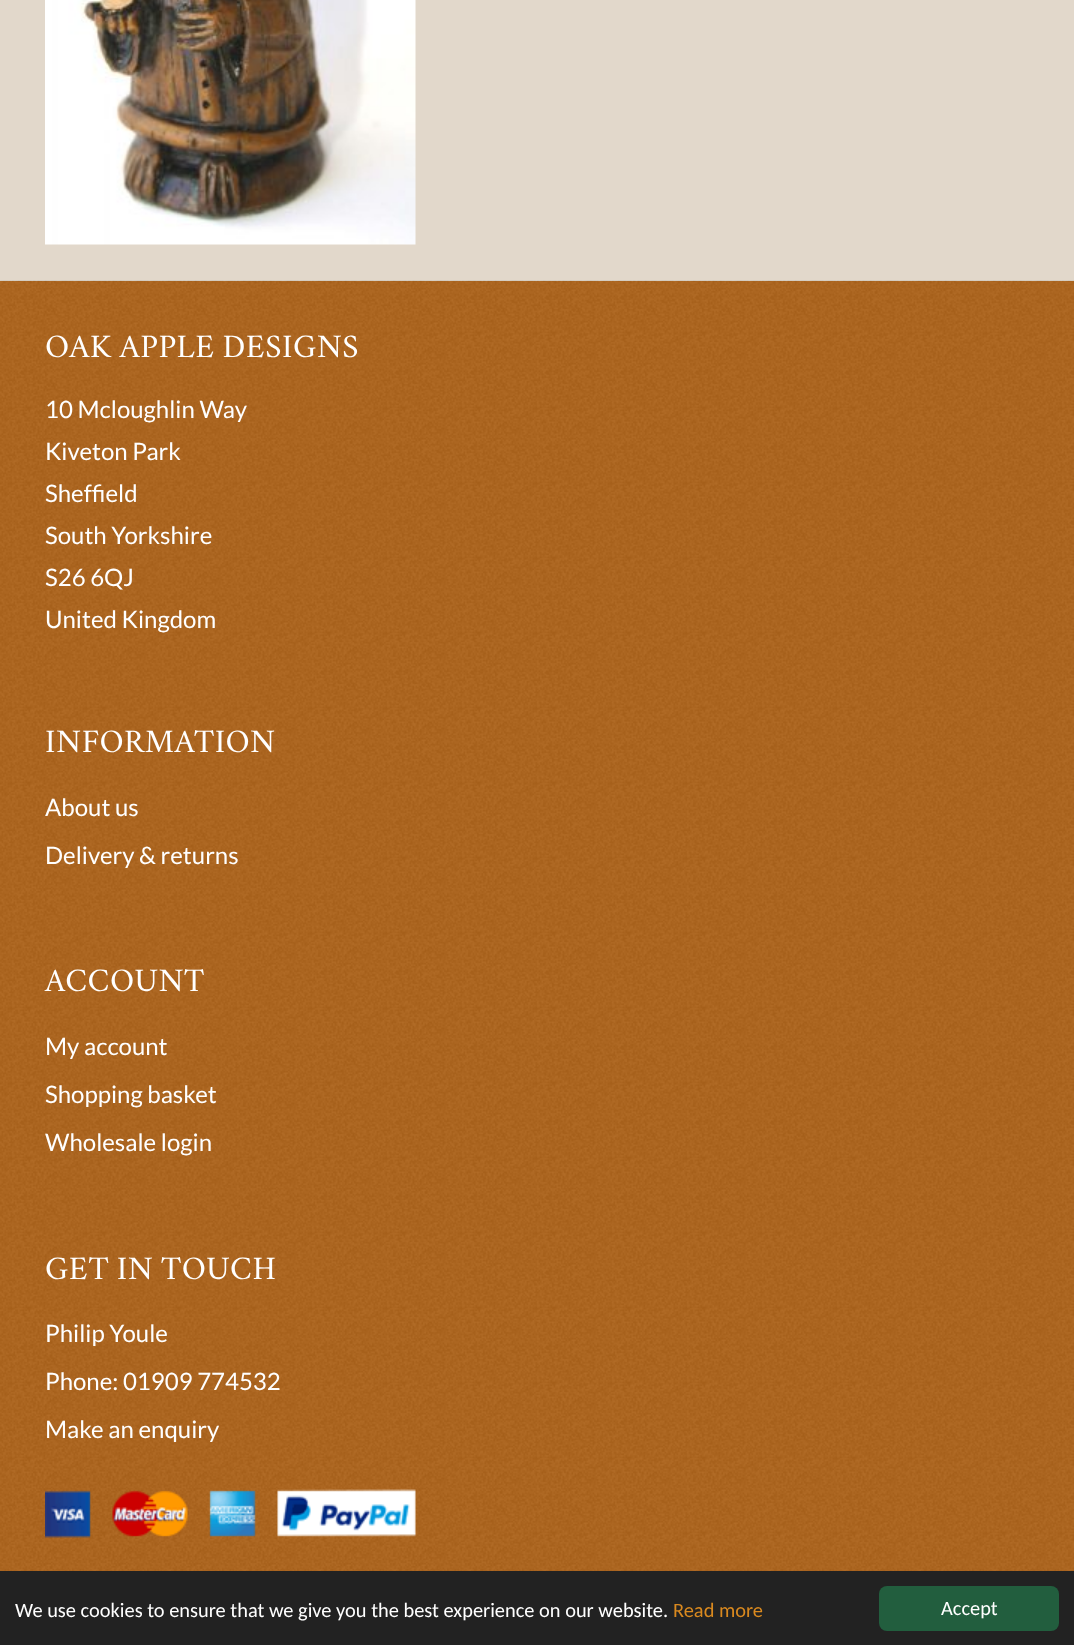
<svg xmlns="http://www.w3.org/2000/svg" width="1074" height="1645">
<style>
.a{font:28.5px Crimson Text;letter-spacing:0.6px;fill:#fff}
.b{font:24px Lato;fill:#fff}
.c{font:20.4px Carlito;fill:#fff}
.d{font:20.4px Carlito;fill:#d9891f}
</style>
<rect width="100%" height="100%" fill="#e2d8cb"/>
<image href="1.png" x="45" y="0" width="371" height="245"/>
<path fill="#ba5d00" d="M0 281h1074v1290H0z"/>
<image href="2.png" x="0" y="280" width="1074" height="1291"/>
<image href="3.png" x="45" y="1489" width="371" height="49"/>
<path fill="#222" d="M0 1571h1074v74H0z"/>
<rect fill="#225e3e" x="879" y="1586" width="180" height="45" rx="8"/>
<text class="a" x="45" y="357">OAK APPLE DESIGNS</text>
<text class="b" x="45" y="418">10 Mcloughlin Way</text>
<text class="b" x="45" y="460">Kiveton Park</text>
<text class="b" x="45" y="502">Sheffield</text>
<text class="b" x="45" y="544">South Yorkshire</text>
<text class="b" x="45" y="586">S26 6QJ</text>
<text class="b" x="45" y="628">United Kingdom</text>
<text class="a" x="45" y="752">INFORMATION</text>
<text class="b" x="45" y="816">About us</text>
<text class="b" x="45" y="864">Delivery &amp; returns</text>
<text class="a" x="45" y="991">ACCOUNT</text>
<text class="b" x="45" y="1055">My account</text>
<text class="b" x="45" y="1103">Shopping basket</text>
<text class="b" x="45" y="1151">Wholesale login</text>
<text class="a" x="45" y="1279">GET IN TOUCH</text>
<text class="b" x="45" y="1342">Philip Youle</text>
<text class="b" x="45" y="1390">Phone: 01909 774532</text>
<text class="b" x="45" y="1438">Make an enquiry</text>
<text class="c" x="15" y="1617">We use cookies to ensure that we give you the best experience on our website.</text>
<text class="d" x="673" y="1617">Read more</text>
<text class="c" x="941" y="1615">Accept</text>
</svg>
